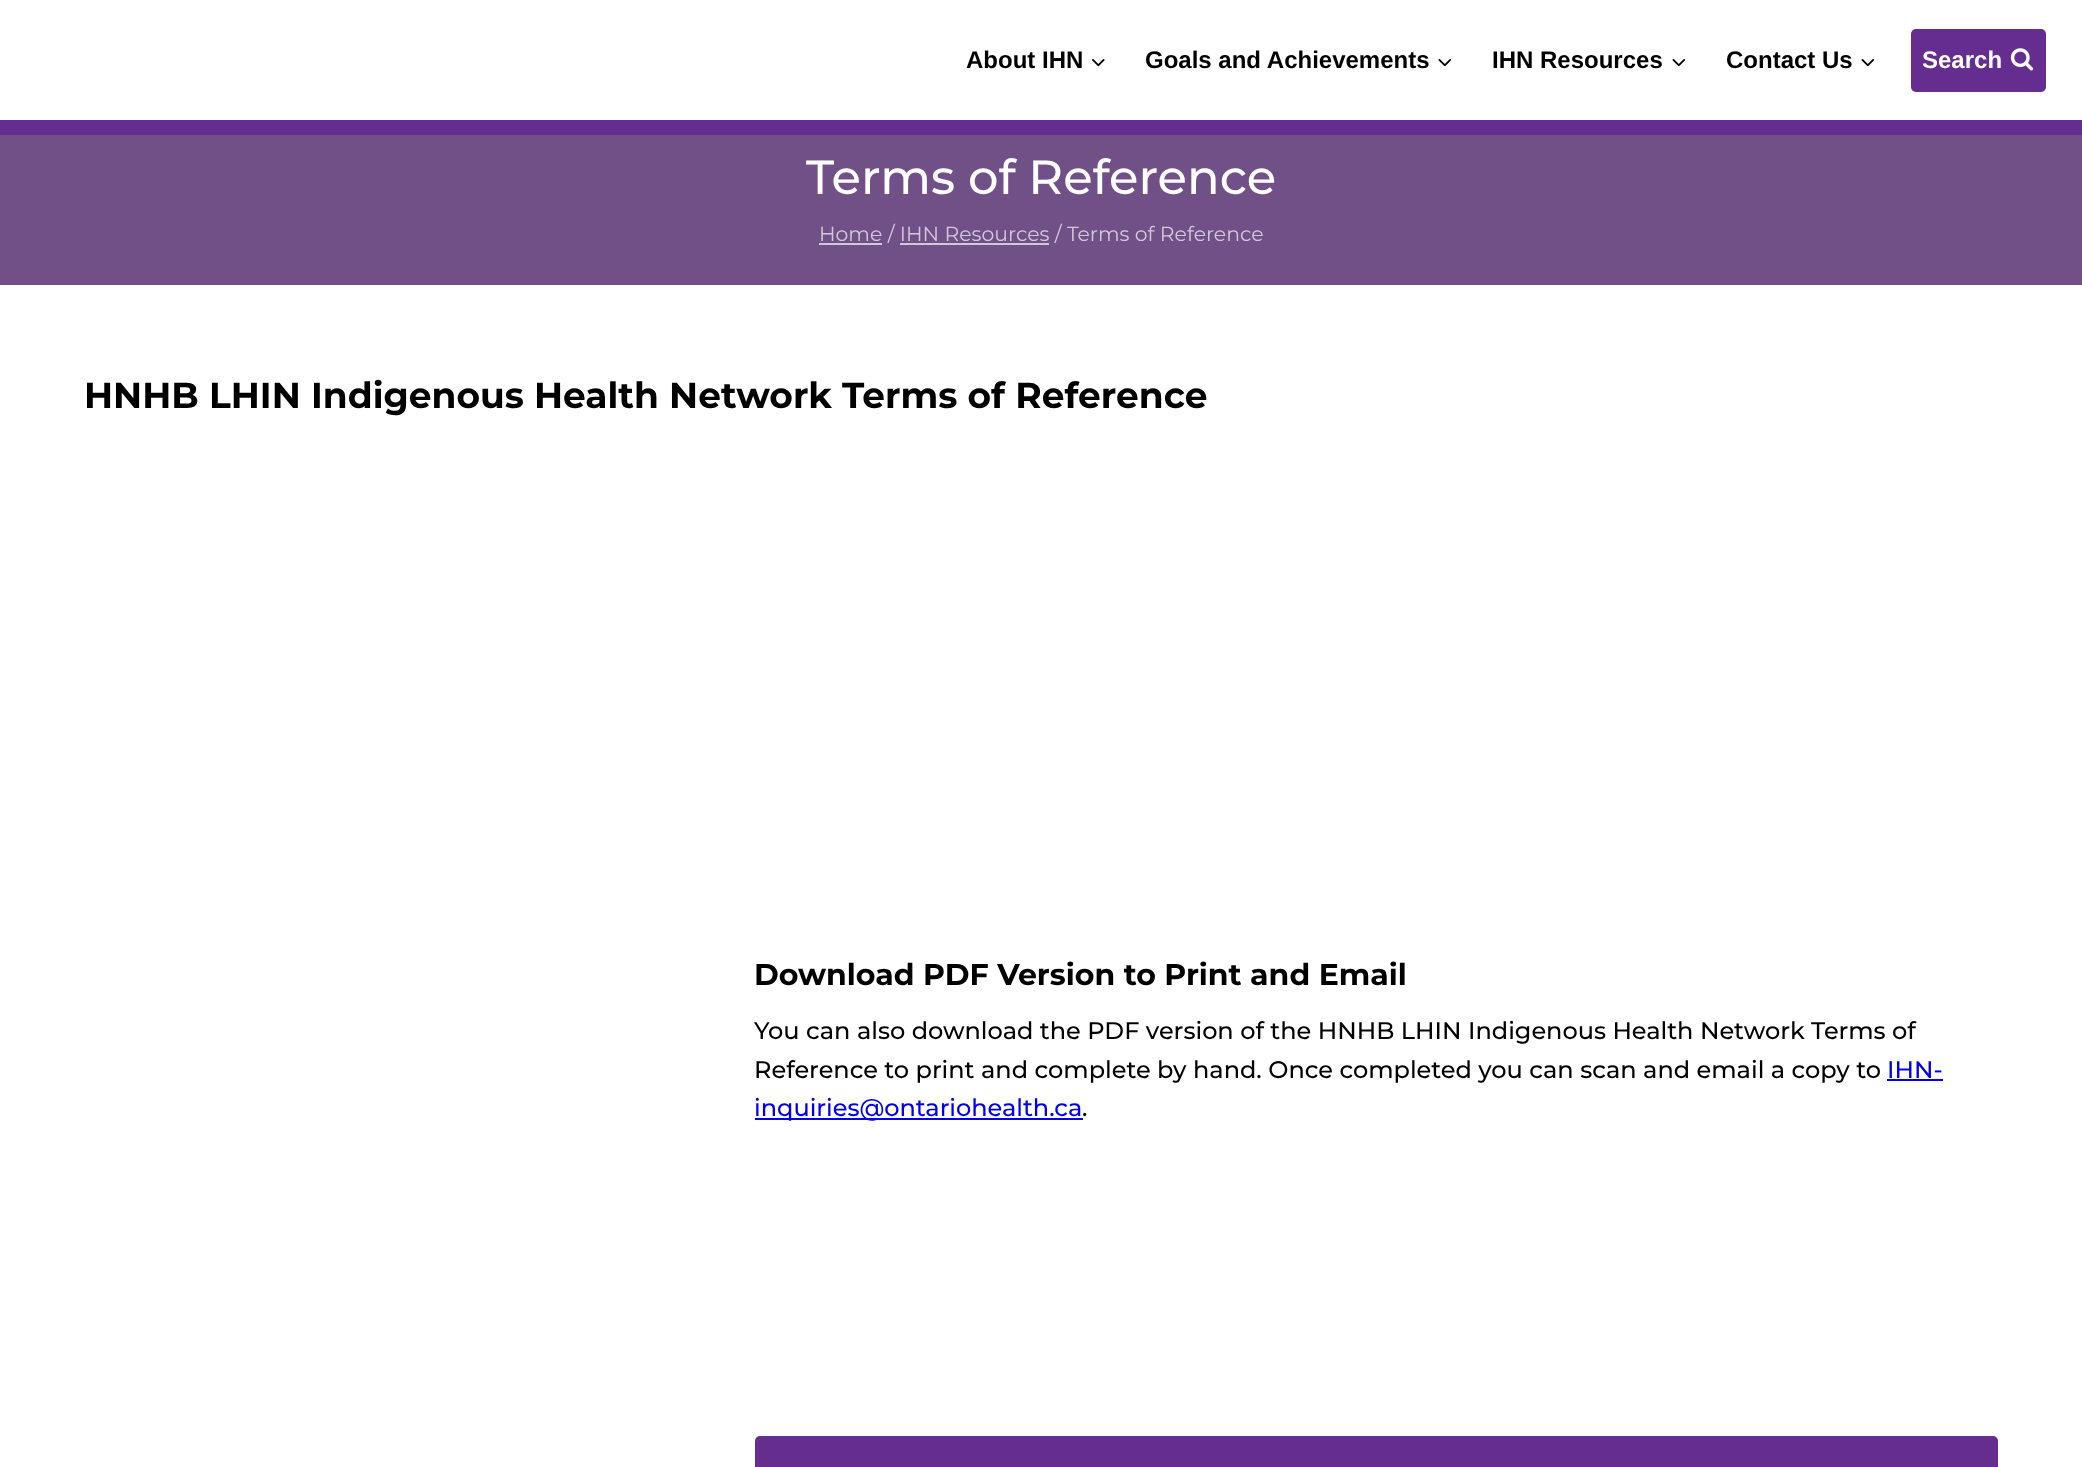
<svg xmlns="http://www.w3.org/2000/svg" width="2082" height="1467">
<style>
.a{font:bold 24px Liberation Sans;fill:#000}
.b{font:bold 24px Liberation Sans;fill:#fff}
.c{font:500 48px Montserrat;fill:#fff}
.d{font:20.4px Montserrat;fill:#d2c8dc}
.e{font:bold 36px Montserrat;fill:#000}
.f{font:bold 30px Montserrat;fill:#000}
.g{font:500 24px Montserrat;fill:#000}
.h{font:500 24px Montserrat;fill:#00e}
</style>
<rect width="100%" height="100%" fill="#fff"/>
<path fill="#662d91" d="M0 120h2082v15H0z"/>
<image href="1.png" x="1092" y="59" width="13" height="8"/>
<image href="2.png" x="1438" y="59" width="13" height="8"/>
<image href="2.png" x="1672" y="59" width="13" height="8"/>
<image href="2.png" x="1861" y="59" width="13" height="8"/>
<rect fill="#662d91" x="1911" y="29" width="135" height="63" rx="5"/>
<image href="3.png" x="2010" y="48" width="24" height="23"/>
<path fill="#715088" d="M0 135h2082v150H0z"/>
<path fill="#d2c8dc" d="M819 243h63v2H819z"/>
<path fill="#d2c8dc" d="M900 243h149v2H900z"/>
<path fill="#00e" d="M1887 1079h56v2H1887z"/>
<path fill="#00e" d="M755 1118h328v2H755z"/>
<rect fill="#662d91" x="755" y="1436" width="1243" height="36" rx="5"/>
<text class="a" x="966" y="68">About IHN</text>
<text class="a" x="1145" y="68">Goals and Achievements</text>
<text class="a" x="1492" y="68">IHN Resources</text>
<text class="a" x="1726" y="68">Contact Us</text>
<text class="b" x="1922" y="68">Search</text>
<text class="c" x="806" y="194">Terms of Reference</text>
<text class="d" x="819" y="241">Home / IHN Resources / Terms of Reference</text>
<text class="e" x="84" y="408">HNHB LHIN Indigenous Health Network Terms of Reference</text>
<text class="f" x="754" y="985">Download PDF Version to Print and Email</text>
<text class="g" x="754" y="1039">You can also download the PDF version of the HNHB LHIN Indigenous Health Network Terms of</text>
<text class="g" x="754" y="1078">Reference to print and complete by hand. Once completed you can scan and email a copy to</text>
<text class="h" x="1887" y="1078">IHN-</text>
<text class="h" x="754" y="1116">inquiries@ontariohealth.ca</text>
<text class="g" x="1082" y="1116">.</text>
</svg>
